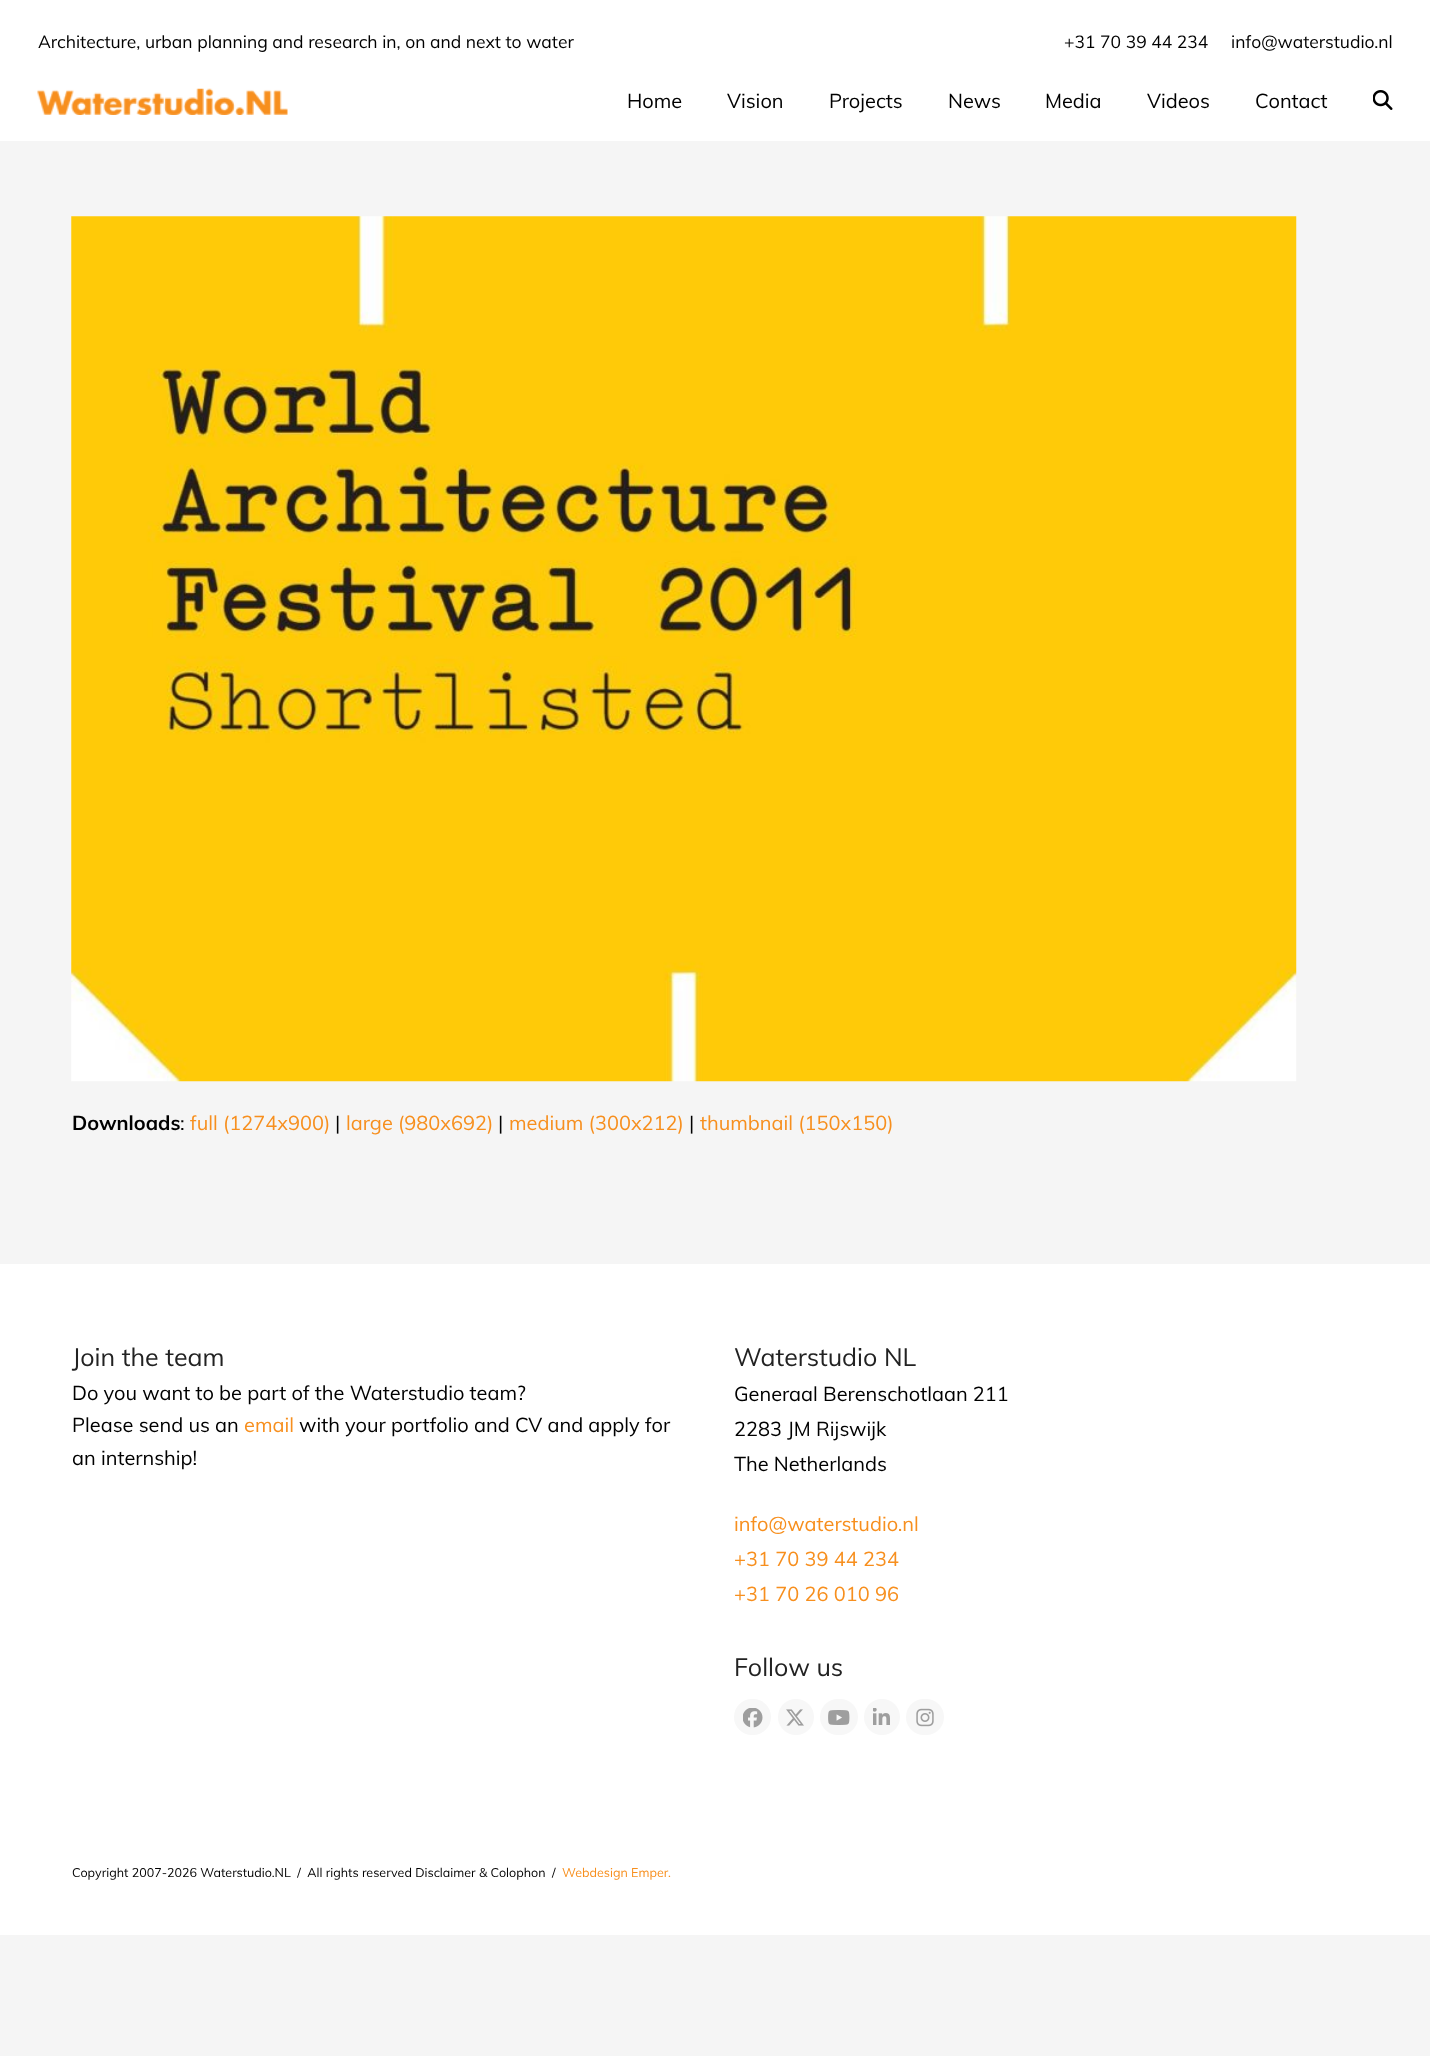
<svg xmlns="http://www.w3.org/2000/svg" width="1430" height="2056">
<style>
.a{font:17.5px Muli;fill:#000}
.b{font:20px Muli;fill:#000}
.c{font:bold 20px Muli;fill:#000}
.d{font:20px Muli;fill:#f78f1e}
.e{font:25px Muli;fill:#222}
.f{font:12.5px Muli;fill:#000}
.g{font:12.5px Muli;fill:#f78f1e}
</style>
<rect width="100%" height="100%" fill="#f5f5f5"/>
<path fill="#fff" d="M0 0h1430v141H0z"/>
<image href="1.png" x="37" y="88" width="251" height="27"/>
<image href="2.png" x="1373" y="90" width="20" height="20"/>
<image href="3.png" x="71" y="216" width="1226" height="866"/>
<path fill="#fff" d="M0 1264h1430v671H0z"/>
<rect fill="#f7f7f7" x="734" y="1699" width="37" height="36" rx="18"/>
<image href="4.png" x="743" y="1708" width="20" height="20"/>
<circle fill="#f7f7f7" cx="796" cy="1717" r="18"/>
<image href="5.png" x="786" y="1709" width="18" height="17"/>
<rect fill="#f7f7f7" x="820" y="1699" width="38" height="36" rx="18"/>
<image href="6.png" x="828" y="1710" width="22" height="15"/>
<circle fill="#f7f7f7" cx="882" cy="1717" r="18"/>
<image href="7.png" x="873" y="1708" width="17" height="17"/>
<rect fill="#f7f7f7" x="906" y="1699" width="38" height="36" rx="18"/>
<image href="8.png" x="916" y="1708" width="18" height="19"/>
<text class="a" x="38" y="48">Architecture, urban planning and research in, on and next to water</text>
<text class="a" x="1064" y="48">+31 70 39 44 234</text>
<text class="a" x="1231" y="48">info@waterstudio.nl</text>
<text class="b" x="627" y="108">Home</text>
<text class="b" x="727" y="108">Vision</text>
<text class="b" x="829" y="108">Projects</text>
<text class="b" x="948" y="108">News</text>
<text class="b" x="1045" y="108">Media</text>
<text class="b" x="1147" y="108">Videos</text>
<text class="b" x="1255" y="108">Contact</text>
<text class="c" x="72" y="1130">Downloads</text>
<text class="b" x="180" y="1130">:</text>
<text class="d" x="190" y="1130">full (1274x900)</text>
<text class="b" x="335" y="1130">|</text>
<text class="d" x="346" y="1130">large (980x692)</text>
<text class="b" x="498" y="1130">|</text>
<text class="d" x="509" y="1130">medium (300x212)</text>
<text class="b" x="689" y="1130">|</text>
<text class="d" x="700" y="1130">thumbnail (150x150)</text>
<text class="e" x="72" y="1366">Join the team</text>
<text class="b" x="72" y="1400">Do you want to be part of the Waterstudio team?</text>
<text class="b" x="72" y="1432">Please send us an</text>
<text class="d" x="244" y="1432">email</text>
<text class="b" x="299" y="1432">with your portfolio and CV and apply for</text>
<text class="b" x="72" y="1465">an internship!</text>
<text class="e" x="734" y="1366">Waterstudio NL</text>
<text class="b" x="734" y="1401">Generaal Berenschotlaan 211</text>
<text class="b" x="734" y="1436">2283 JM Rijswijk</text>
<text class="b" x="734" y="1471">The Netherlands</text>
<text class="d" x="734" y="1531">info@waterstudio.nl</text>
<text class="d" x="734" y="1566">+31 70 39 44 234</text>
<text class="d" x="734" y="1601">+31 70 26 010 96</text>
<text class="e" x="734" y="1676">Follow us</text>
<text class="f" xml:space="preserve" x="72" y="1877">Copyright 2007-2026 Waterstudio.NL  /  All rights reserved Disclaimer &amp; Colophon  /</text>
<text class="g" x="562" y="1877">Webdesign Emper.</text>
</svg>
